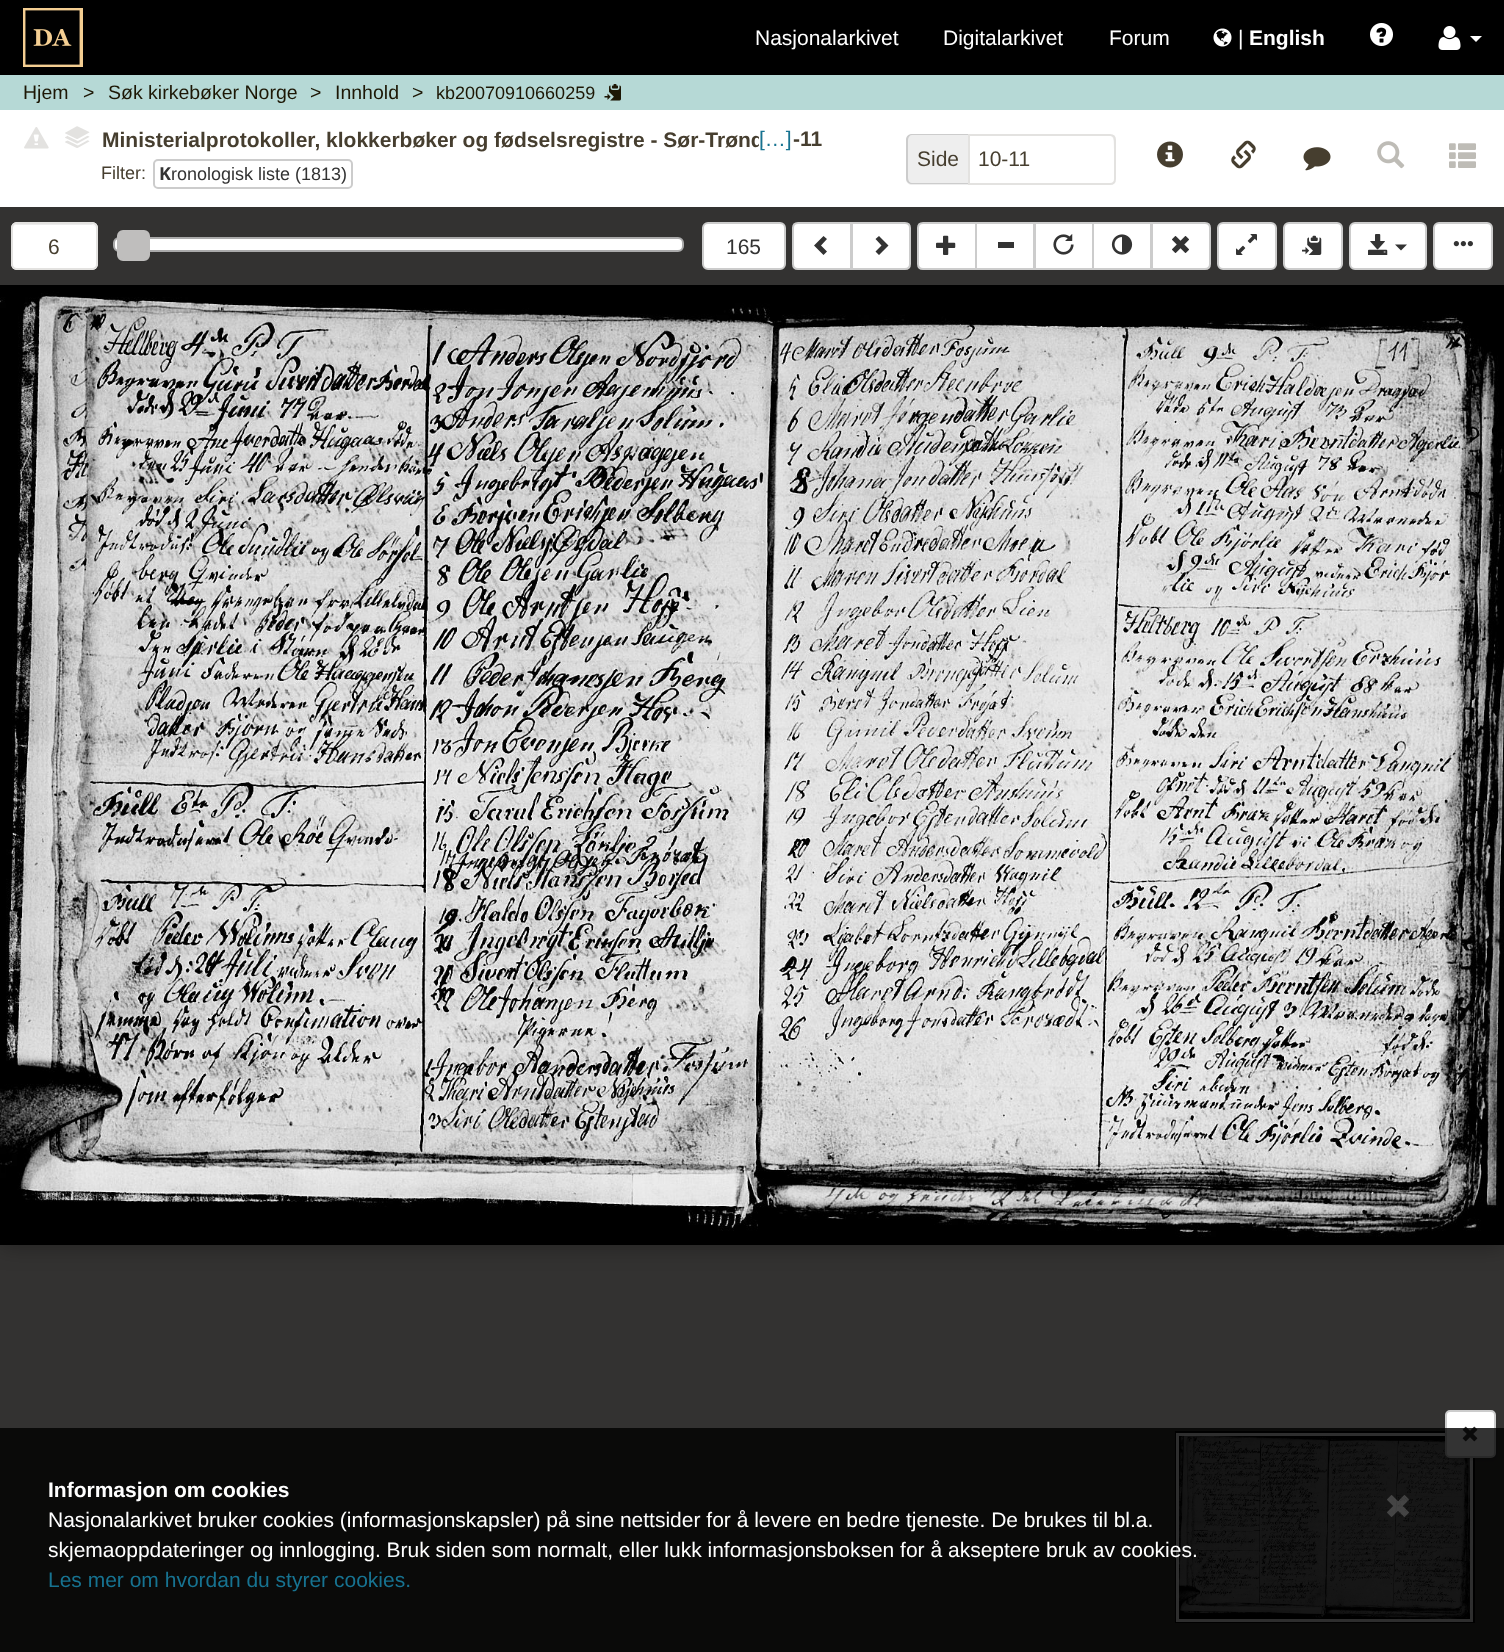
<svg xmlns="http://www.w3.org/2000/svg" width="1504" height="1652">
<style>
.a{font:21px Liberation Sans;fill:#fff}
.b{font:bold 21px Liberation Sans;fill:#fff}
.c{font:19.5px Liberation Sans;fill:#1d1705}
.d{font:18px Liberation Sans;fill:#1d1705}
.e{font:bold 21px Liberation Sans;fill:#463e2f}
.f{font:21px Liberation Sans;fill:#177391}
.g{font:18px Liberation Sans;fill:#463e2f}
.h{font:bold 18px Noto Sans;fill:#333}
.i{font:18px Liberation Sans;fill:#333}
.j{font:21px Liberation Sans;fill:#463e2f}
.k{font:21px Liberation Sans;fill:#333}
</style>
<defs>
<clipPath id="clip1"><path d="M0 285h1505v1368H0z"/></clipPath>
</defs>
<rect width="100%" height="100%" fill="#333231"/>
<path fill="#000" d="M0 0h1504v75H0z"/>
<image href="1.png" x="23" y="8" width="60" height="59"/>
<image href="2.png" x="1213" y="28" width="19" height="19"/>
<image href="3.png" x="1370" y="23" width="23" height="23"/>
<image href="4.png" x="1438" y="26" width="23" height="24"/>
<path fill="#fff" d="M1470 36h12l-6 6z"/>
<path fill="#b6d9d6" d="M0 75h1504v35H0z"/>
<image href="5.png" x="604" y="84" width="17" height="17"/>
<path fill="#fff" d="M0 110h1504v97H0z"/>
<image href="6.png" x="24" y="127" width="25" height="22"/>
<image href="11.png" x="65" y="140" width="25" height="8"/>
<image href="10.png" x="67" y="137" width="21" height="9"/>
<image href="9.png" x="65" y="135" width="25" height="9"/>
<image href="8.png" x="68" y="133" width="20" height="8"/>
<image href="7.png" x="65" y="126" width="25" height="13"/>
<rect fill="none" stroke="#ccc" stroke-width="2" x="154" y="160" width="198" height="28" rx="4"/>
<path fill="#eee" d="M912 134h56v51h-56c-3.5 0-6-2.5-6-6v-39c0-3.5 2.5-6 6-6z"/>
<path fill="#ccc" fill-rule="evenodd" d="M912 134h56v50h-56c-3 0-6-2-6-6v-38c0-4 3-6 6-6zm0 1h56v48h-56c-2 0-4-2-4-5v-38c0-3 2-5 4-5z"/>
<path fill="#ececec" d="M969 136h117c29 0 28-6 28 18v27c1-1 1-2 1-3v-38c0-3-2-5-5-5h-141z"/>
<path fill="none" stroke="#e3e2e0" stroke-width="2" d="M969 135h141c3 0 5 2 5 5v39c0 3-2 5-5 5h-141z"/>
<image href="12.png" x="1157" y="141" width="26" height="27"/>
<image href="13.png" x="1231" y="140" width="25" height="29"/>
<image href="14.png" x="1303" y="147" width="28" height="24"/>
<image href="15.png" x="1377" y="141" width="28" height="28"/>
<image href="16.png" x="1449" y="143" width="27" height="25"/>
<rect fill="#fff" x="11" y="222" width="87" height="48" rx="6"/>
<path fill="#ececec" d="M16 225h76c2 0 4 2 4 5c0-9-12-6-17-6h-50c-5 0-17-3-17 6c0-3 2-5 4-5z"/>
<rect fill="none" stroke="#e3e2e0" stroke-width="2" x="12" y="223" width="85" height="46" rx="5"/>
<rect fill="#fff" stroke="#aaa" stroke-width="2" x="114" y="238" width="569" height="13" rx="5"/>
<rect fill="#bfbebd" stroke="#bfbebd" stroke-width="2" x="118" y="231" width="31" height="29" rx="5"/>
<rect fill="#fff" stroke="#ccc" stroke-width="2" x="703" y="223" width="82" height="46" rx="5"/>
<path fill="#fff" stroke="#ccc" stroke-width="2" d="M923 223h53v46h-53c-3 0-5-2-5-5v-36c0-3 2-5 5-5z"/>
<image href="17.png" x="936" y="235" width="20" height="20"/>
<path fill="#fff" stroke="#ccc" stroke-width="2" d="M976 223h58v46H976z"/>
<path fill="#fff" stroke="#ccc" stroke-width="2" d="M1035 223h58v46H1035z"/>
<image href="18.png" x="1053" y="234" width="21" height="21"/>
<path fill="#fff" stroke="#ccc" stroke-width="2" d="M1093 223h58v46H1093z"/>
<image href="19.png" x="1111" y="234" width="22" height="21"/>
<path fill="#fff" stroke="#ccc" stroke-width="2" d="M1152 223h53c3 0 5 2 5 5v36c0 3-2 5-5 5h-53z"/>
<rect fill="#fff" stroke="#ccc" stroke-width="2" x="1218" y="223" width="58" height="46" rx="5"/>
<image href="21.png" x="1236" y="234" width="21" height="21"/>
<rect fill="#fff" stroke="#ccc" stroke-width="2" x="1284" y="223" width="58" height="46" rx="5"/>
<image href="22.png" x="1302" y="235" width="20" height="20"/>
<rect fill="#fff" stroke="#ccc" stroke-width="2" x="1350" y="223" width="76" height="46" rx="5"/>
<image href="23.png" x="1368" y="234" width="20" height="21"/>
<rect fill="#fff" stroke="#ccc" stroke-width="2" x="1434" y="223" width="58" height="46" rx="5"/>
<g clip-path="url(#clip1)">
<path fill="#0000004d" filter="blur(11px)" d="M0 287h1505v960H0z"/>
</g>
<path fill="#fff" stroke="#ccc" stroke-width="2" d="M798 223h53v46h-53c-3 0-5-2-5-5v-36c0-3 2-5 5-5z"/>
<path fill="#333" d="M827 239l-6 6.5l6 6l-3.5 3.5l-9.5-9.5l9.5-9.5z"/>
<path fill="#fff" stroke="#ccc" stroke-width="2" d="M852 223h53c3 0 5 2 5 5v36c0 3-2 5-5 5h-53z"/>
<path fill="#333" d="M888.5 245.5l-9.5 9.5l-3.5-3.5l6-6l-6-6.5l3.5-3z"/>
<path fill="#333" d="M998 242h16v6H998z"/>
<image href="20.png" x="1172" y="236" width="17" height="17"/>
<path fill="#333" d="M1395 244.5h12l-6 6z"/>
<image href="24.png" x="1453" y="241" width="20" height="6"/>
<image href="25.png" x="0" y="285" width="1504" height="960"/>
<path fill="none" stroke="#000" stroke-width="2" d="M1176 1432h298v190H1176z"/>
<image href="27.png" x="1176" y="1433" width="297" height="188"/>
<path fill="none" stroke="#ffffffe6" stroke-width="3" d="M1177.5 1434.5h294v186H1177.5z"/>
<rect fill="#0000001a" filter="blur(1px)" x="1445" y="1412" width="51" height="48" rx="5"/>
<rect fill="#fff" stroke="#ccc" stroke-width="2" x="1446" y="1411" width="49" height="46" rx="4"/>
<image href="26.png" x="1462" y="1426" width="16" height="16"/>
<path fill="#000000cc" d="M0 1428h1504v224H0z"/>
<image href="28.png" x="1387" y="1495" width="22" height="22"/>
<text class="a" x="755" y="45">Nasjonalarkivet</text>
<text class="a" x="943" y="45">Digitalarkivet</text>
<text class="a" x="1109" y="45">Forum</text>
<text class="a" x="1238" y="45">|</text>
<text class="b" x="1249" y="45">English</text>
<text class="c" x="23" y="99">Hjem</text>
<text class="c" x="83" y="99">&gt;</text>
<text class="c" x="108" y="99">Søk kirkebøker Norge</text>
<text class="c" x="310" y="99">&gt;</text>
<text class="c" x="335" y="99">Innhold</text>
<text class="c" x="412" y="99">&gt;</text>
<text class="d" x="436" y="99">kb20070910660259</text>
<text class="e" x="102" y="147">Ministerialprotokoller, klokkerbøker og fødselsregistre - Sør-Trønd</text>
<path fill="#fff" d="M759 131h3v16H759z"/>
<text class="f" x="759" y="146">[…]</text>
<text class="e" x="793" y="146">-11</text>
<text class="g" x="101" y="179">Filter:</text>
<text class="h" x="159" y="180">K</text>
<text class="i" x="171" y="180">ronologisk liste (1813)</text>
<text class="j" x="917" y="166">Side</text>
<text class="j" x="978" y="166">10-11</text>
<text class="j" x="48" y="254">6</text>
<text class="k" x="726" y="254">165</text>
<text class="b" x="48" y="1497">Informasjon om cookies</text>
<text class="a" x="48" y="1527">Nasjonalarkivet bruker cookies (informasjonskapsler) på sine nettsider for å levere en bedre tjeneste. De brukes til bl.a.</text>
<text class="a" x="48" y="1557">skjemaoppdateringer og innlogging. Bruk siden som normalt, eller lukk informasjonsboksen for å akseptere bruk av cookies.</text>
<text class="f" x="48" y="1587">Les mer om hvordan du styrer cookies.</text>
</svg>
